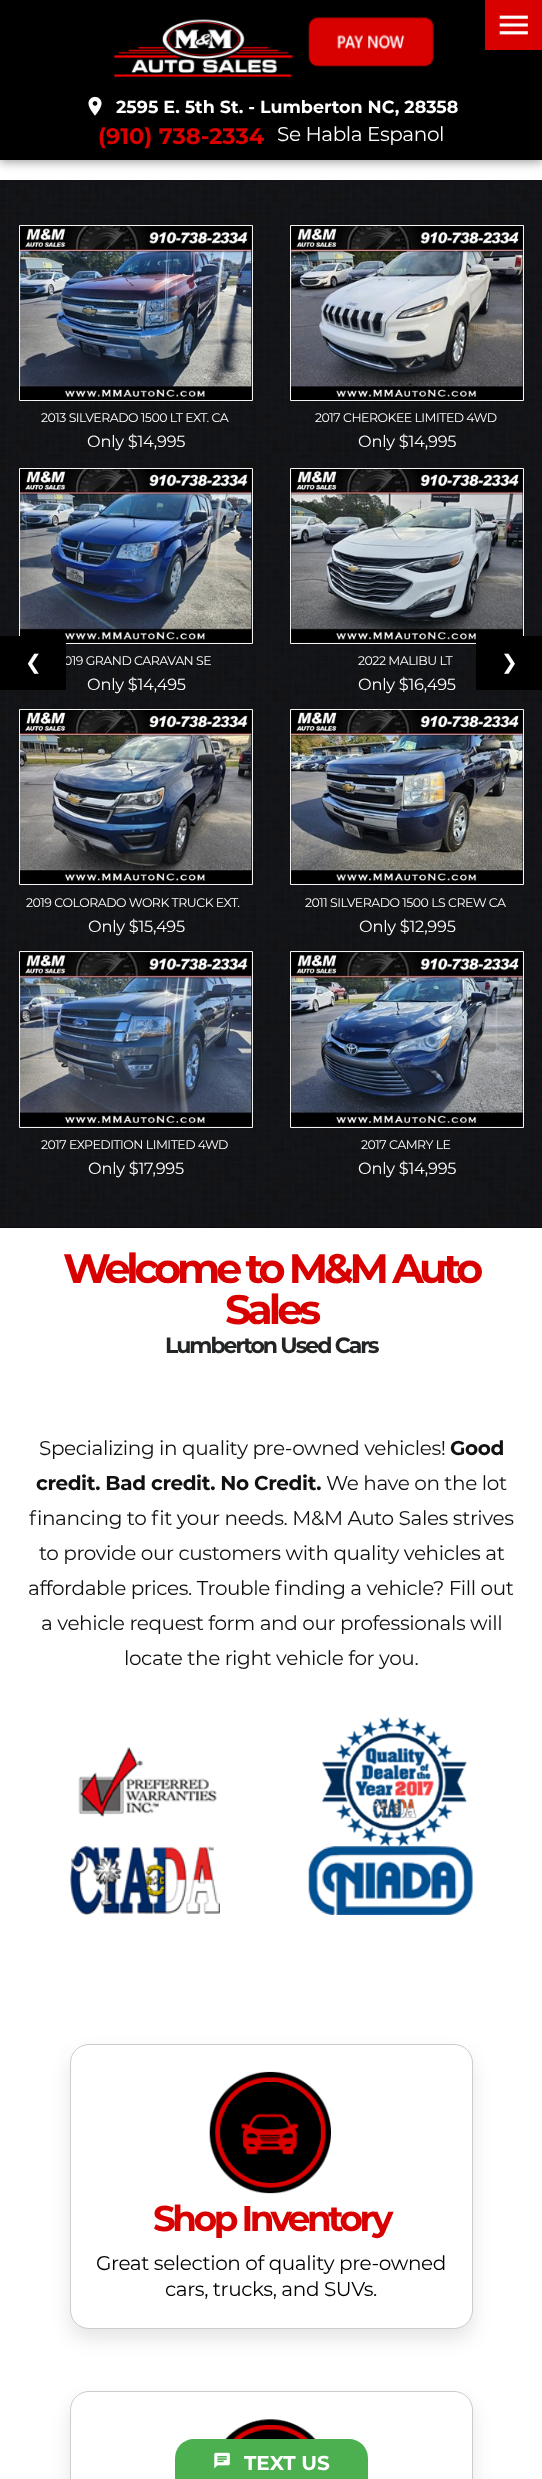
<svg xmlns="http://www.w3.org/2000/svg" width="542" height="2479">
<style>
.a{font:bold 17.5px Montserrat;fill:#fff}
.b{font:bold 22.5px Montserrat;fill:#d90000}
.c{font:20px Montserrat;letter-spacing:-0.4px;fill:#fff}
.d{font:12.5px Montserrat;letter-spacing:-0.5px;fill:#fff}
.e{font:16.25px Montserrat;letter-spacing:-0.25px;fill:#fff}
.f{font:20px DejaVu Sans;fill:#fff}
.g{font:bold 41.25px Montserrat;letter-spacing:-4.25px;fill:#d90000}
.h{font:bold 41.25px Montserrat;letter-spacing:-4px;fill:#d90000}
.i{font:bold 22px Montserrat;letter-spacing:-2px;fill:#232425}
.j{font:20px Montserrat;letter-spacing:-0.4px;fill:#111}
.k{font:bold 20px Montserrat;letter-spacing:-0.4px;fill:#111}
.l{font:bold 35.75px Montserrat;letter-spacing:-3.5px;fill:#d90000}
.m{font:20px Montserrat;letter-spacing:-0.4px;fill:#000}
.n{font:bold 20px Montserrat;fill:#fff}
</style>
<rect width="100%" height="100%" fill="#fff"/>
<path fill="#00000054" filter="blur(5px)" d="M0 3h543v160H0z"/>
<path fill="#000" d="M0 0h542v160H0z"/>
<image href="1.png" x="114" y="19" width="180" height="59"/>
<image href="2.png" x="308" y="17" width="126" height="50"/>
<path fill="#d90000" d="M485 0h57v50H485z"/>
<image href="3.png" x="499" y="15" width="29" height="20"/>
<image href="4.png" x="88" y="96" width="14" height="20"/>
<image href="5.png" x="0" y="180" width="542" height="1"/>
<path fill="#000" d="M0 181h542v1047H0z"/>
<image href="6.png" x="0" y="181" width="542" height="1047"/>
<image href="7.png" x="20" y="226" width="232" height="174"/>
<path fill="none" stroke="#f4f4f4" d="M19.5 225.5h233v175H19.5z"/>
<image href="8.png" x="291" y="226" width="232" height="174"/>
<path fill="none" stroke="#f4f4f4" d="M290.5 225.5h233v175H290.5z"/>
<image href="9.png" x="20" y="469" width="232" height="174"/>
<path fill="none" stroke="#f4f4f4" d="M19.5 468.5h233v175H19.5z"/>
<image href="10.png" x="291" y="469" width="232" height="174"/>
<path fill="none" stroke="#f4f4f4" d="M290.5 468.5h233v175H290.5z"/>
<image href="11.png" x="20" y="710" width="232" height="174"/>
<path fill="none" stroke="#f4f4f4" d="M19.5 709.5h233v175H19.5z"/>
<image href="12.png" x="291" y="710" width="232" height="174"/>
<path fill="none" stroke="#f4f4f4" d="M290.5 709.5h233v175H290.5z"/>
<image href="13.png" x="20" y="952" width="232" height="175"/>
<path fill="none" stroke="#f4f4f4" d="M19.5 951.5h233v176H19.5z"/>
<image href="14.png" x="291" y="952" width="232" height="175"/>
<path fill="none" stroke="#f4f4f4" d="M290.5 951.5h233v176H290.5z"/>
<path fill="#000" d="M476 636h66v54H476z"/>
<image href="15.png" x="78" y="1747" width="139" height="70"/>
<image href="16.png" x="322" y="1717" width="145" height="130"/>
<image href="17.png" x="70" y="1846" width="150" height="69"/>
<image href="18.png" x="308" y="1846" width="165" height="69"/>
<rect fill="#0000001a" filter="blur(9.5px)" x="70" y="2054" width="403" height="285" rx="19"/>
<rect fill="#fff" stroke="#ccc" x="70.5" y="2044.5" width="402" height="284" rx="18.5"/>
<image href="19.png" x="209" y="2071" width="122" height="123"/>
<rect fill="#0000001a" filter="blur(9.5px)" x="70" y="2401" width="403" height="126" rx="19"/>
<rect fill="#fff" stroke="#ccc" x="70.5" y="2391.5" width="402" height="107" rx="18.5"/>
<image href="20.png" x="225" y="2419" width="91" height="20"/>
<rect fill="#4caf50" x="175" y="2439" width="193" height="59" rx="19"/>
<image href="21.png" x="214" y="2452" width="16" height="17"/>
<text class="a" x="116" y="113">2595 E. 5th St. - Lumberton NC, 28358</text>
<text class="b" x="98" y="144">(910) 738-2334</text>
<text class="c" x="277" y="141">Se Habla Espanol</text>
<text class="d" x="41" y="422">2013 SILVERADO 1500 LT EXT. CA</text>
<text class="e" x="87" y="447">Only $14,995</text>
<text class="d" x="315" y="422">2017 CHEROKEE LIMITED 4WD</text>
<text class="e" x="358" y="447">Only $14,995</text>
<text class="d" x="64" y="665">019 GRAND CARAVAN SE</text>
<text class="e" x="87" y="690">Only $14,495</text>
<text class="d" x="358" y="665">2022 MALIBU LT</text>
<text class="e" x="358" y="690">Only $16,495</text>
<text class="d" x="26" y="907">2019 COLORADO WORK TRUCK EXT.</text>
<text class="e" x="88" y="932">Only $15,495</text>
<text class="d" x="305" y="907">2011 SILVERADO 1500 LS CREW CA</text>
<text class="e" x="359" y="932">Only $12,995</text>
<text class="d" x="41" y="1149">2017 EXPEDITION LIMITED 4WD</text>
<text class="e" x="88" y="1174">Only $17,995</text>
<text class="d" x="361" y="1149">2017 CAMRY LE</text>
<text class="e" x="358" y="1174">Only $14,995</text>
<path fill="#000" d="M0 636h66v54H0z"/>
<text class="f" x="25" y="669">❮</text>
<text class="f" x="501" y="669">❯</text>
<text class="g" x="63" y="1283">Welcome to M&amp;M Auto</text>
<text class="h" x="225" y="1324">Sales</text>
<text class="i" x="165" y="1353">Lumberton Used Cars</text>
<text class="j" x="39" y="1455">Specializing in quality pre-owned vehicles!</text>
<text class="k" x="450" y="1455">Good</text>
<text class="k" x="36" y="1490">credit. Bad credit. No Credit.</text>
<text class="j" x="326" y="1490">We have on the lot</text>
<text class="j" x="29" y="1525">financing to fit your needs. M&amp;M Auto Sales strives</text>
<text class="j" x="39" y="1560">to provide our customers with quality vehicles at</text>
<text class="j" x="28" y="1595">affordable prices. Trouble finding a vehicle? Fill out</text>
<text class="j" x="41" y="1630">a vehicle request form and our professionals will</text>
<text class="j" x="124" y="1665">locate the right vehicle for you.</text>
<text class="l" x="153" y="2231">Shop Inventory</text>
<text class="m" x="96" y="2270">Great selection of quality pre-owned</text>
<text class="m" x="165" y="2296">cars, trucks, and SUVs.</text>
<text class="n" x="244" y="2470">TEXT US</text>
</svg>
